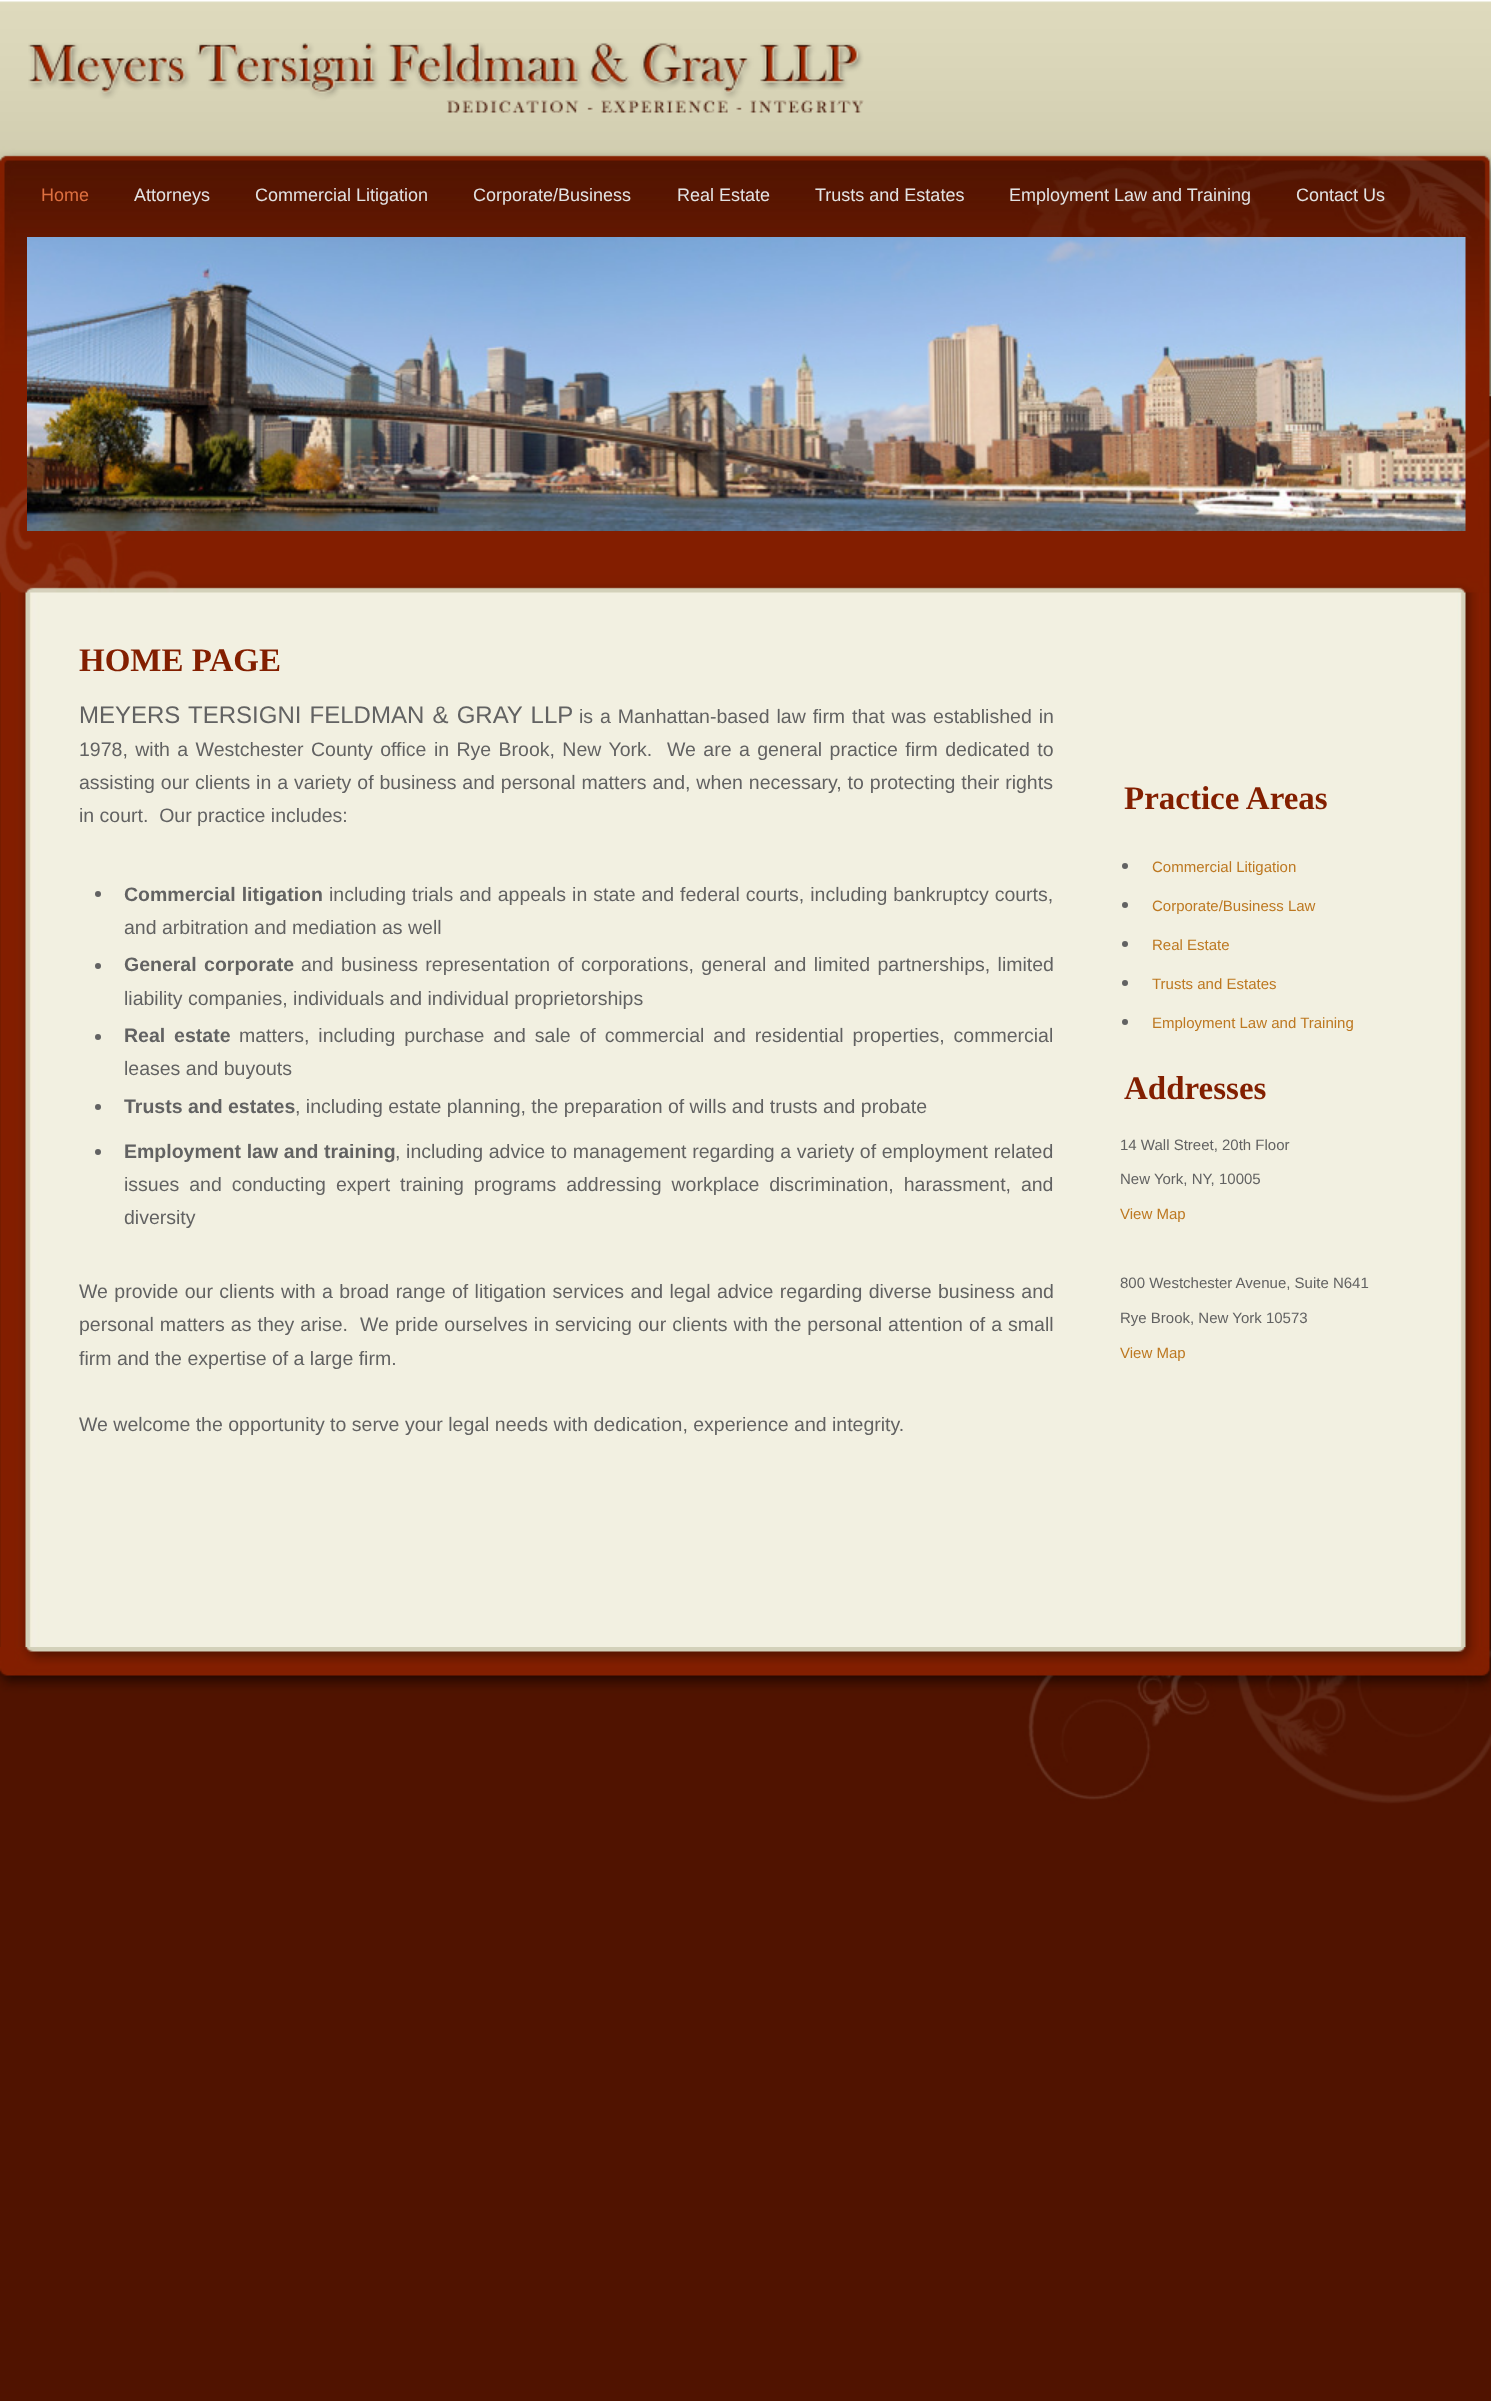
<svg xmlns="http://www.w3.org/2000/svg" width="1491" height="2401">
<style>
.a{font:18px Liberation Sans;fill:#de7040}
.b{font:18px Liberation Sans;fill:#e3e3e3}
.c{font:bold 33px Liberation Serif;fill:#831f00}
.d{font:24px Liberation Sans;fill:#626262}
.e{font:19.5px Liberation Sans;fill:#626262}
.f{font:bold 19.5px Liberation Sans;fill:#626262}
.g{font:15px Liberation Sans;fill:#bd7821}
.h{font:15px Liberation Sans;fill:#626262}
</style>
<rect width="100%" height="100%" fill="#501300"/>
<image href="1.png" x="0" y="592" width="1491" height="1055"/>
<image href="2.png" x="0" y="0" width="1491" height="593"/>
<image href="3.png" x="0" y="1647" width="1491" height="180"/>
<image href="4.png" x="28" y="42" width="836" height="71"/>
<image href="5.png" x="27" y="237" width="1439" height="294"/>
<circle fill="#626262" cx="98" cy="894" r="3"/>
<circle fill="#626262" cx="98" cy="966" r="3"/>
<circle fill="#626262" cx="98" cy="1037" r="3"/>
<circle fill="#626262" cx="98" cy="1107" r="3"/>
<circle fill="#626262" cx="98" cy="1152" r="3"/>
<circle fill="#626262" cx="1125" cy="866" r="3"/>
<circle fill="#626262" cx="1125" cy="905" r="3"/>
<circle fill="#626262" cx="1125" cy="944" r="3"/>
<circle fill="#626262" cx="1125" cy="983" r="3"/>
<circle fill="#626262" cx="1125" cy="1022" r="3"/>
<text class="a" x="41" y="201">Home</text>
<text class="b" x="134" y="201">Attorneys</text>
<text class="b" x="255" y="201">Commercial Litigation</text>
<text class="b" x="473" y="201">Corporate/Business</text>
<text class="b" x="677" y="201">Real Estate</text>
<text class="b" x="815" y="201">Trusts and Estates</text>
<text class="b" x="1009" y="201">Employment Law and Training</text>
<text class="b" x="1296" y="201">Contact Us</text>
<text class="c" x="79" y="671">HOME PAGE</text>
<text class="d" x="79" y="723" word-spacing="1.5">MEYERS TERSIGNI FELDMAN &amp; GRAY LLP</text>
<text class="e" x="579" y="723" word-spacing="1.5">is a Manhattan-based law firm that was established in</text>
<text class="e" xml:space="preserve" x="79" y="756" word-spacing="2">1978, with a Westchester County office in Rye Brook, New York.  We are a general practice firm dedicated to</text>
<text class="e" x="79" y="789" word-spacing="0.5">assisting our clients in a variety of business and personal matters and, when necessary, to protecting their rights</text>
<text class="e" xml:space="preserve" x="79" y="822">in court.  Our practice includes:</text>
<text class="f" x="124" y="901" word-spacing="0.6">Commercial litigation</text>
<text class="e" x="329" y="901" word-spacing="0.6">including trials and appeals in state and federal courts, including bankruptcy courts,</text>
<text class="e" x="124" y="934">and arbitration and mediation as well</text>
<text class="f" x="124" y="971" word-spacing="2">General corporate</text>
<text class="e" x="301" y="971" word-spacing="2">and business representation of corporations, general and limited partnerships, limited</text>
<text class="e" x="124" y="1005">liability companies, individuals and individual proprietorships</text>
<text class="f" x="124" y="1042" word-spacing="3.5">Real estate</text>
<text class="e" x="239" y="1042" word-spacing="3.5">matters, including purchase and sale of commercial and residential properties, commercial</text>
<text class="e" x="124" y="1075">leases and buyouts</text>
<text class="f" x="124" y="1113">Trusts and estates</text>
<text class="e" x="295" y="1113">, including estate planning, the preparation of wills and trusts and probate</text>
<text class="f" x="124" y="1158" word-spacing="0.25">Employment law and training</text>
<text class="e" x="395" y="1158" word-spacing="0.25">, including advice to management regarding a variety of employment related</text>
<text class="e" x="124" y="1191" word-spacing="4.5">issues and conducting expert training programs addressing workplace discrimination, harassment, and</text>
<text class="e" x="124" y="1224">diversity</text>
<text class="e" x="79" y="1298" word-spacing="1">We provide our clients with a broad range of litigation services and legal advice regarding diverse business and</text>
<text class="e" xml:space="preserve" x="79" y="1331" word-spacing="0.6">personal matters as they arise.  We pride ourselves in servicing our clients with the personal attention of a small</text>
<text class="e" x="79" y="1365">firm and the expertise of a large firm.</text>
<text class="e" x="79" y="1431">We welcome the opportunity to serve your legal needs with dedication, experience and integrity.</text>
<text class="c" x="1124" y="809">Practice Areas</text>
<text class="g" x="1152" y="872">Commercial Litigation</text>
<text class="g" x="1152" y="911">Corporate/Business Law</text>
<text class="g" x="1152" y="950">Real Estate</text>
<text class="g" x="1152" y="989">Trusts and Estates</text>
<text class="g" x="1152" y="1028">Employment Law and Training</text>
<text class="c" x="1124" y="1099">Addresses</text>
<text class="h" x="1120" y="1150">14 Wall Street, 20th Floor</text>
<text class="h" x="1120" y="1184">New York, NY, 10005</text>
<text class="g" x="1120" y="1219">View Map</text>
<text class="h" x="1120" y="1288">800 Westchester Avenue, Suite N641</text>
<text class="h" x="1120" y="1323">Rye Brook, New York 10573</text>
<text class="g" x="1120" y="1358">View Map</text>
</svg>
